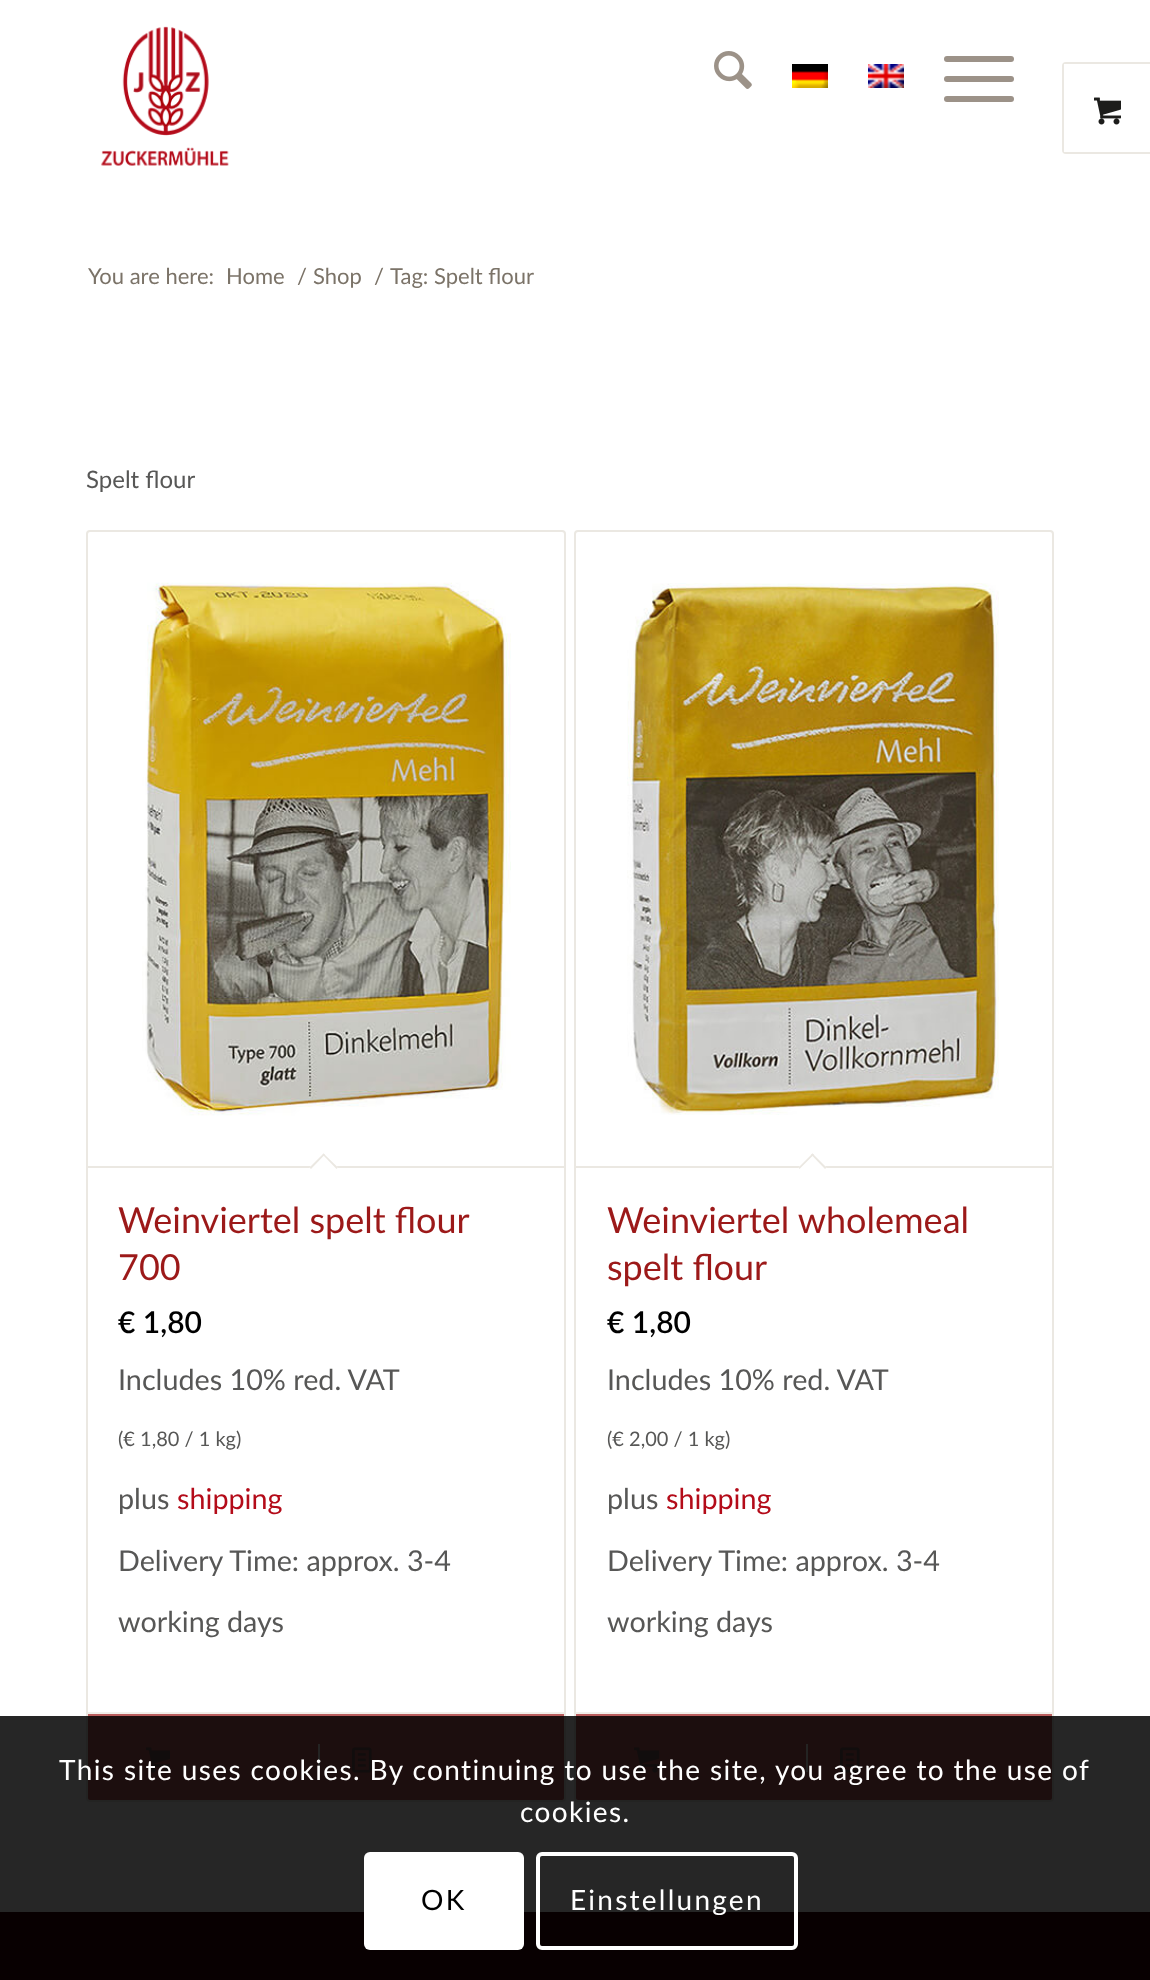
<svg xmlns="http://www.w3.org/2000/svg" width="1150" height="1980">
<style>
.a{font:22px Lato;fill:#7b7368}
.b{font:24px Lato;fill:#575756}
.c{font:36px Lato;fill:#9c1919}
.d{font:600 30px Lato;fill:#000}
.e{font:28.75px Lato;fill:#575756}
.f{font:20px Lato;fill:#575756}
.g{font:28.75px Lato;fill:#b40b19}
.h{font:28px Lato;letter-spacing:1.4px;fill:#fff}
.i{font:28px Lato;letter-spacing:2.25px;fill:#000}
.j{font:28px Lato;letter-spacing:2.25px;fill:#fff}
</style>
<rect width="100%" height="100%" fill="#fff"/>
<image href="1.png" x="101" y="26" width="128" height="140"/>
<image href="2.png" x="714" y="51" width="38" height="38"/>
<image href="3.png" x="792" y="64" width="36" height="24"/>
<image href="4.png" x="868" y="64" width="36" height="24"/>
<rect fill="#9c9288" x="944" y="76" width="70" height="6" rx="3"/>
<rect fill="#9c9288" x="944" y="56" width="70" height="6" rx="3"/>
<rect fill="#9c9288" x="944" y="96" width="70" height="6" rx="3"/>
<rect fill="none" stroke="#ebe8e2" stroke-width="2" x="1063" y="63" width="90" height="90" rx="3"/>
<path fill="#fff" d="M1064 64h2v88H1064z"/>
<image href="5.png" x="1094" y="97" width="27" height="28"/>
<rect fill="none" stroke="#ebe8e2" stroke-width="2" x="87" y="531" width="478" height="1270" rx="3"/>
<image href="6.png" x="142" y="582" width="369" height="534"/>
<path fill="#ebe8e2" d="M88 1166h476v2H88z"/>
<path fill="#fff" d="M323.5 1153.5l14.5 14l-14.5 14l-14-14z"/>
<path fill="#ebe8e2" d="M323.5 1153.5l14.5 14l-1.5 1.5l-14-14.5z"/>
<path fill="#ebe8e2" d="M323.5 1153.5l1.5 1l-14 14.5l-1.5-1.5z"/>
<path fill="#9c1919b3" d="M88 1712h476v86c0 1-1 2-2 2h-472c-1 0-2-1-2-2z"/>
<path fill="#f1efeb" d="M88 1712h476v2H88z"/>
<image href="7.png" x="146" y="1747" width="24" height="26"/>
<path fill="#f1efeb" d="M318 1744h2v28H318z"/>
<image href="8.png" x="352" y="1747" width="20" height="26"/>
<rect fill="none" stroke="#ebe8e2" stroke-width="2" x="575" y="531" width="478" height="1270" rx="3"/>
<image href="9.png" x="627" y="583" width="372" height="532"/>
<path fill="#ebe8e2" d="M576 1166h476v2H576z"/>
<path fill="#fff" d="M812.5 1153.5l14 14l-14 14l-14-14z"/>
<path fill="#ebe8e2" d="M812.5 1153.5l14 14l-1.5 1.5l-14-14.5z"/>
<path fill="#ebe8e2" d="M812.5 1153.5l1.5 1l-14.5 14.5l-1-1.5z"/>
<path fill="#9c1919b3" d="M576 1712h476v86c0 1-1 2-2 2h-472c-1 0-2-1-2-2z"/>
<path fill="#f1efeb" d="M576 1712h476v2H576z"/>
<image href="10.png" x="634" y="1747" width="26" height="26"/>
<path fill="#f1efeb" d="M806 1744h2v28H806z"/>
<image href="8.png" x="840" y="1747" width="20" height="26"/>
<path fill="#360307" d="M0 1912h1150v68H0z"/>
<path fill="#000000d9" d="M0 1716h1150v264H0z"/>
<rect fill="#fff" x="364" y="1852" width="160" height="98" rx="6"/>
<rect fill="none" stroke="#fff" stroke-width="4" x="538" y="1854" width="258" height="94" rx="4"/>
<text class="a" x="88" y="284">You are here:</text>
<text class="a" x="226" y="284">Home</text>
<text class="a" x="297" y="284">/</text>
<text class="a" x="313" y="284">Shop</text>
<text class="a" x="374" y="284">/</text>
<text class="a" x="390" y="284">Tag: Spelt flour</text>
<text class="b" x="86" y="488">Spelt flour</text>
<text class="c" x="118" y="1233">Weinviertel spelt flour</text>
<text class="c" x="118" y="1280">700</text>
<text class="d" x="118" y="1333">€ 1,80</text>
<text class="e" x="118" y="1390">Includes 10% red. VAT</text>
<text class="f" x="118" y="1446">(€ 1,80 / 1 kg)</text>
<text class="e" x="118" y="1509">plus</text>
<text class="g" x="177" y="1509">shipping</text>
<text class="e" x="118" y="1571">Delivery Time: approx. 3-4</text>
<text class="e" x="118" y="1632">working days</text>
<text class="c" x="607" y="1233">Weinviertel wholemeal</text>
<text class="c" x="607" y="1280">spelt flour</text>
<text class="d" x="607" y="1333">€ 1,80</text>
<text class="e" x="607" y="1390">Includes 10% red. VAT</text>
<text class="f" x="607" y="1446">(€ 2,00 / 1 kg)</text>
<text class="e" x="607" y="1509">plus</text>
<text class="g" x="666" y="1509">shipping</text>
<text class="e" x="607" y="1571">Delivery Time: approx. 3-4</text>
<text class="e" x="607" y="1632">working days</text>
<text class="h" x="59" y="1780">This site uses cookies. By continuing to use the site, you agree to the use of</text>
<text class="h" x="520" y="1822">cookies.</text>
<text class="i" x="421" y="1910">OK</text>
<text class="j" x="570" y="1910">Einstellungen</text>
</svg>
